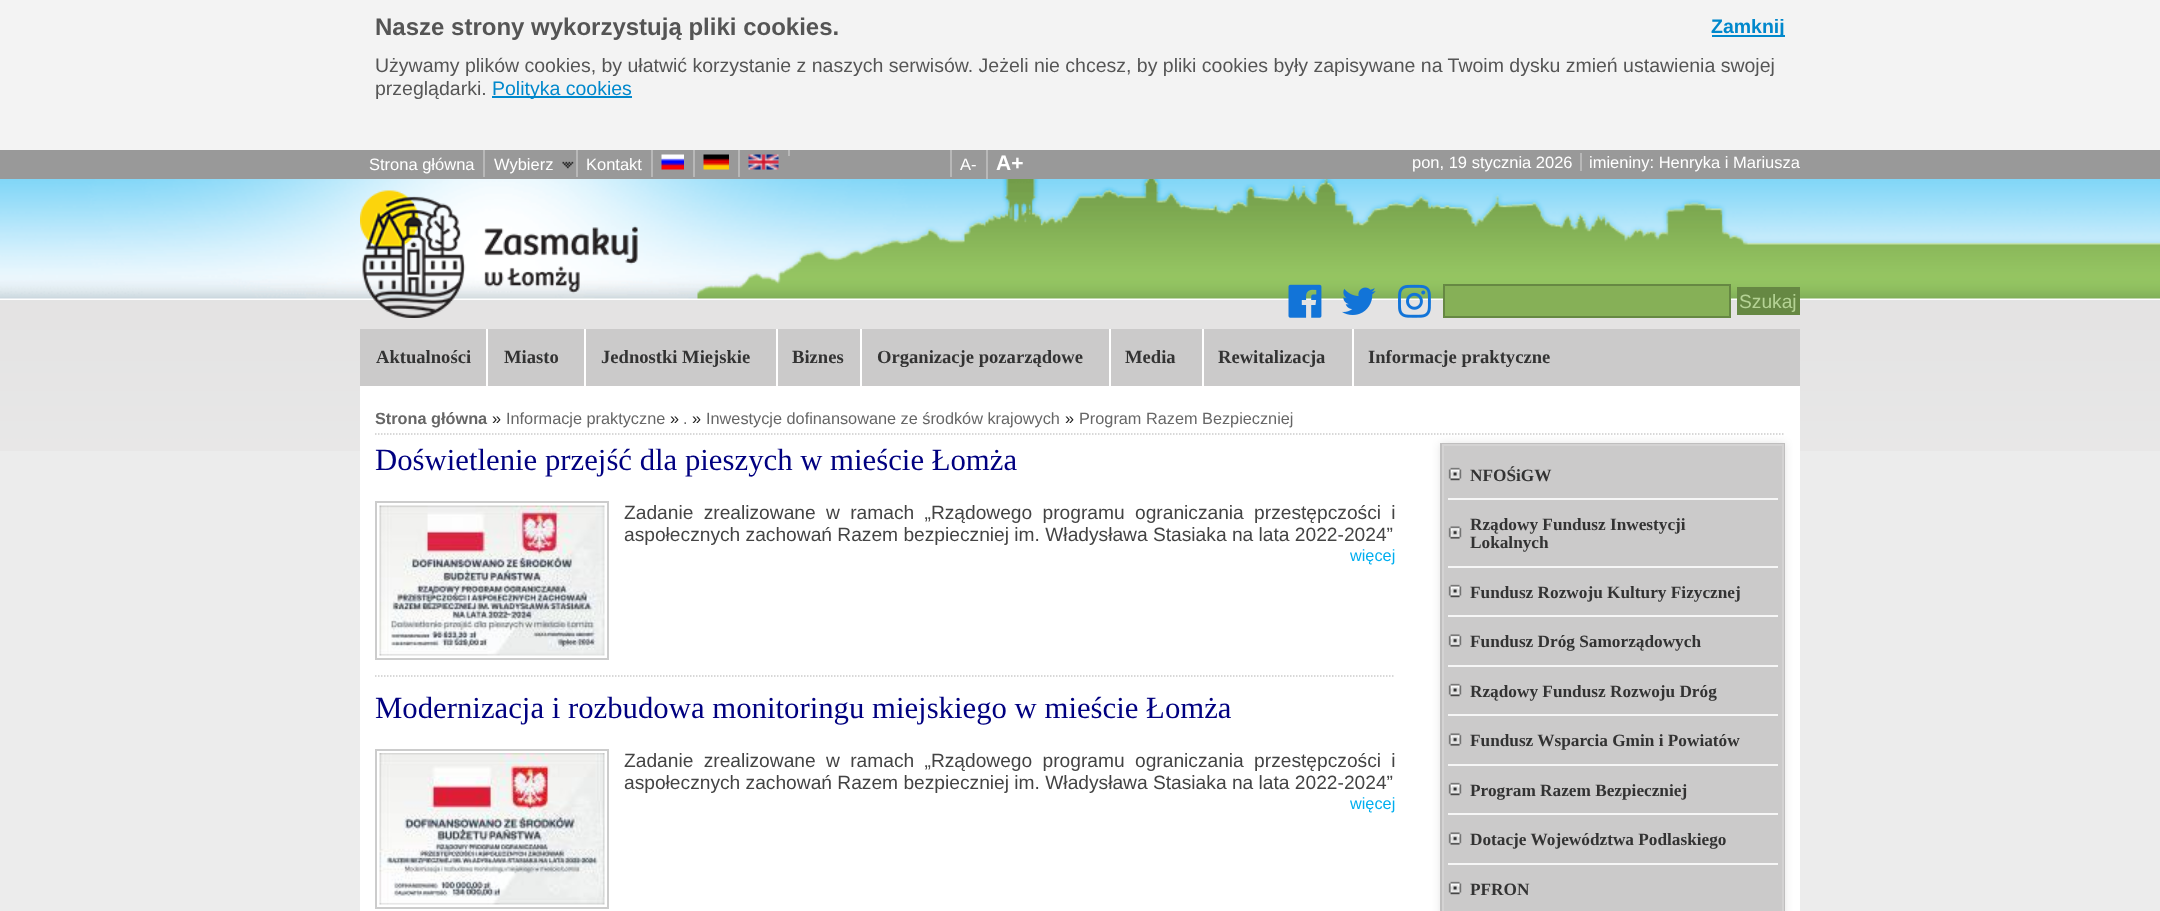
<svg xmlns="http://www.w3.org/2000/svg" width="2160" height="911">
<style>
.a{font:bold 24px Liberation Sans;fill:#555}
.b{font:bold 19.5px Liberation Sans;fill:#08c}
.c{font:19.5px Liberation Sans;fill:#555}
.d{font:19.5px Liberation Sans;fill:#08c}
.e{font:16.5px Liberation Sans;fill:#fff}
.f{font:bold 21px Liberation Sans;fill:#fff}
.g{font:19.2px Liberation Sans;fill:#b4d294}
.h{font:bold 18.6px Liberation Serif;fill:#333}
.i{font:bold 16.3px Liberation Sans;fill:#666}
.j{font:16.3px Liberation Sans;fill:#222}
.k{font:16.3px Liberation Sans;fill:#666}
.l{font:30.75px Liberation Serif;fill:#000080}
.m{font:19.2px Liberation Sans;fill:#444}
.n{font:16.3px Liberation Sans;fill:#00aeef}
.o{font:bold 17.25px Liberation Serif;fill:#333}
</style>
<rect width="100%" height="100%" fill="#ececec"/>
<image href="1.png" x="0" y="300" width="2160" height="151"/>
<image href="2.png" x="0" y="179" width="2160" height="121"/>
<path fill="#f3f3f3" d="M0 0h2160v150H0z"/>
<path fill="#08c" d="M1712 35h73v2H1712z"/>
<path fill="#08c" d="M492 96h140v2H492z"/>
<path fill="#999" d="M0 150h2160v29H0z"/>
<path fill="#b8b8b8" d="M651 150h2v27H651z"/>
<image href="3.png" x="661" y="154" width="23" height="16"/>
<path fill="#b8b8b8" d="M693 150h2v27H693z"/>
<image href="4.png" x="703" y="154" width="26" height="16"/>
<path fill="#b8b8b8" d="M738 150h2v27H738z"/>
<image href="5.png" x="748" y="154" width="31" height="16"/>
<path fill="#b8b8b8" d="M788 150h2v6H788z"/>
<image href="6.png" x="562" y="161" width="12" height="8"/>
<path fill="#b8b8b8" d="M483 150h2v27H483z"/>
<path fill="#b8b8b8" d="M576 150h2v27H576z"/>
<path fill="#b8b8b8" d="M950 150h2v27H950z"/>
<path fill="#b8b8b8" d="M986 150h2v29H986z"/>
<path fill="#b8b8b8" d="M1580 153h2v18H1580z"/>
<image href="7.png" x="360" y="190" width="278" height="128"/>
<image href="8.png" x="1288" y="284" width="34" height="34"/>
<image href="9.png" x="1342" y="287" width="34" height="28"/>
<image href="10.png" x="1398" y="284" width="33" height="34"/>
<path fill="#86b057" stroke="#668843" stroke-width="2" d="M1444 285h286v32H1444z"/>
<path fill="#668843" d="M1737 287h63v28H1737z"/>
<path fill="#cbcaca" d="M360 329h1440v57H360z"/>
<path fill="#fff" d="M486 329h2v57H486z"/>
<path fill="#fff" d="M584 329h2v57H584z"/>
<path fill="#fff" d="M776 329h2v57H776z"/>
<path fill="#fff" d="M860 329h2v57H860z"/>
<path fill="#fff" d="M1109 329h2v57H1109z"/>
<path fill="#fff" d="M1202 329h2v57H1202z"/>
<path fill="#fff" d="M1352 329h2v57H1352z"/>
<path fill="#fff" d="M360 386h1440v525H360z"/>
<path fill="none" stroke="#ccc" stroke-width="1.5" stroke-dasharray="1.5 1.5" d="M375 434h1410"/>
<path fill="none" stroke="#ccc" stroke-width="1.5" stroke-dasharray="1.5 1.5" d="M375 676h1020"/>
<path fill="none" stroke="#ccc" stroke-width="2" d="M376 502h232v157H376z"/>
<image href="11.png" x="379" y="505" width="226" height="151"/>
<path fill="none" stroke="#ccc" stroke-width="2" d="M376 750h232v158H376z"/>
<image href="12.png" x="379" y="753" width="226" height="152"/>
<path fill="#0000001a" filter="blur(4.5px)" d="M1440 443h345v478H1440z"/>
<path fill="#bfbebe" d="M1440 443h345v468H1440z"/>
<path fill="#cbcaca" stroke="#d4d3d3" stroke-width="2" d="M1443 445h340v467H1443z"/>
<path fill="#f6f6f6" d="M1448 498h330v2H1448z"/>
<image href="13.png" x="1448" y="467" width="14" height="14"/>
<path fill="#f6f6f6" d="M1448 566h330v2H1448z"/>
<image href="14.png" x="1448" y="526" width="14" height="13"/>
<path fill="#f6f6f6" d="M1448 615h330v2H1448z"/>
<image href="13.png" x="1448" y="584" width="14" height="14"/>
<path fill="#f6f6f6" d="M1448 665h330v2H1448z"/>
<image href="14.png" x="1448" y="634" width="14" height="13"/>
<path fill="#f6f6f6" d="M1448 714h330v2H1448z"/>
<image href="13.png" x="1448" y="683" width="14" height="14"/>
<path fill="#f6f6f6" d="M1448 764h330v2H1448z"/>
<image href="14.png" x="1448" y="733" width="14" height="13"/>
<path fill="#f6f6f6" d="M1448 813h330v2H1448z"/>
<image href="13.png" x="1448" y="782" width="14" height="14"/>
<path fill="#f6f6f6" d="M1448 863h330v2H1448z"/>
<image href="14.png" x="1448" y="832" width="14" height="13"/>
<image href="13.png" x="1448" y="881" width="14" height="14"/>
<text class="a" x="375" y="35">Nasze strony wykorzystują pliki cookies.</text>
<text class="b" x="1711" y="33">Zamknij</text>
<text class="c" x="375" y="72">Używamy plików cookies, by ułatwić korzystanie z naszych serwisów. Jeżeli nie chcesz, by pliki cookies były zapisywane na Twoim dysku zmień ustawienia swojej</text>
<text class="c" x="375" y="95">przeglądarki.</text>
<text class="d" x="492" y="95">Polityka cookies</text>
<text class="e" x="369" y="170">Strona główna</text>
<text class="e" x="494" y="170">Wybierz</text>
<text class="e" x="586" y="170">Kontakt</text>
<text class="e" x="960" y="170">A-</text>
<text class="f" x="996" y="170">A+</text>
<text class="e" x="1412" y="168">pon, 19 stycznia 2026</text>
<text class="e" x="1589" y="168">imieniny: Henryka i Mariusza</text>
<text class="g" x="1739" y="308">Szukaj</text>
<text class="h" x="376" y="363">Aktualności</text>
<text class="h" x="504" y="363">Miasto</text>
<text class="h" x="601" y="363">Jednostki Miejskie</text>
<text class="h" x="792" y="363">Biznes</text>
<text class="h" x="877" y="363">Organizacje pozarządowe</text>
<text class="h" x="1125" y="363">Media</text>
<text class="h" x="1218" y="363">Rewitalizacja</text>
<text class="h" x="1368" y="363">Informacje praktyczne</text>
<text class="i" x="375" y="424">Strona główna</text>
<text class="j" x="492" y="424">»</text>
<text class="k" x="506" y="424">Informacje praktyczne</text>
<text class="j" x="670" y="424">»</text>
<text class="k" x="683" y="424">.</text>
<text class="j" x="692" y="424">»</text>
<text class="k" x="706" y="424">Inwestycje dofinansowane ze środków krajowych</text>
<text class="j" x="1065" y="424">»</text>
<text class="k" x="1079" y="424">Program Razem Bezpieczniej</text>
<text class="l" x="375" y="470">Doświetlenie przejść dla pieszych w mieście Łomża</text>
<text class="m" x="624" y="519" word-spacing="5">Zadanie zrealizowane w ramach „Rządowego programu ograniczania przestępczości i</text>
<text class="m" x="624" y="541">aspołecznych zachowań Razem bezpieczniej im. Władysława Stasiaka na lata 2022-2024”</text>
<text class="n" x="1350" y="561">więcej</text>
<text class="l" x="375" y="718">Modernizacja i rozbudowa monitoringu miejskiego w mieście Łomża</text>
<text class="m" x="624" y="767" word-spacing="5">Zadanie zrealizowane w ramach „Rządowego programu ograniczania przestępczości i</text>
<text class="m" x="624" y="789">aspołecznych zachowań Razem bezpieczniej im. Władysława Stasiaka na lata 2022-2024”</text>
<text class="n" x="1350" y="809">więcej</text>
<text class="o" x="1470" y="481">NFOŚiGW</text>
<text class="o" x="1470" y="530">Rządowy Fundusz Inwestycji</text>
<text class="o" x="1470" y="548">Lokalnych</text>
<text class="o" x="1470" y="598">Fundusz Rozwoju Kultury Fizycznej</text>
<text class="o" x="1470" y="647">Fundusz Dróg Samorządowych</text>
<text class="o" x="1470" y="697">Rządowy Fundusz Rozwoju Dróg</text>
<text class="o" x="1470" y="746">Fundusz Wsparcia Gmin i Powiatów</text>
<text class="o" x="1470" y="796">Program Razem Bezpieczniej</text>
<text class="o" x="1470" y="845">Dotacje Województwa Podlaskiego</text>
<text class="o" x="1470" y="895">PFRON</text>
</svg>
